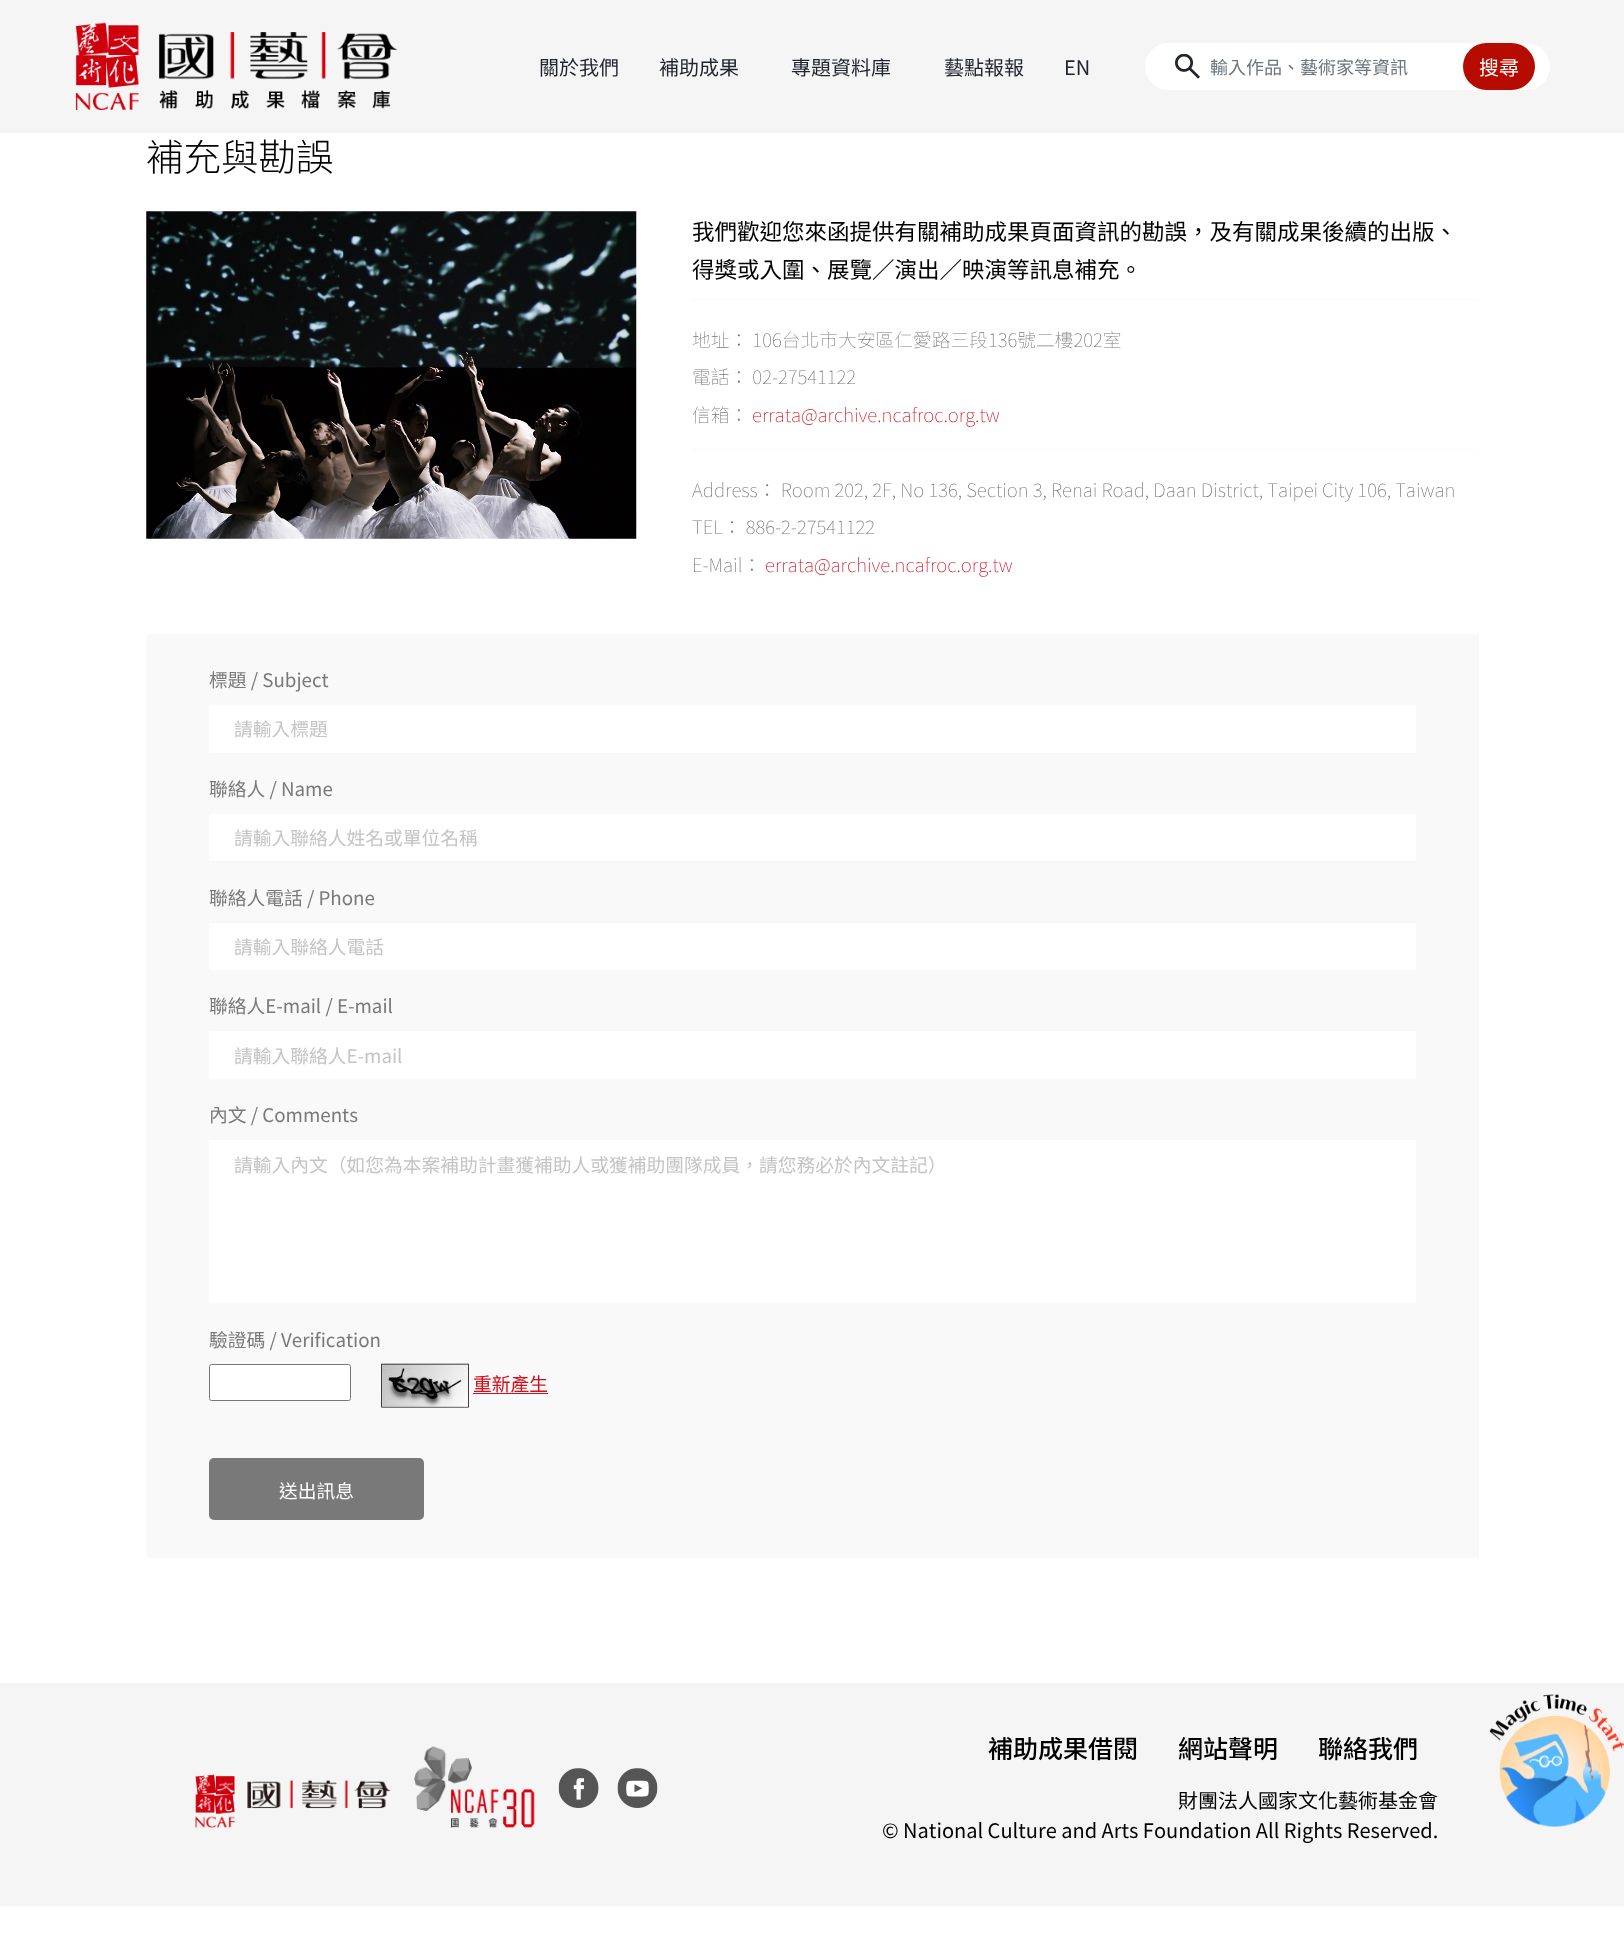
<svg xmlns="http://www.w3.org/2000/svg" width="1624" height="1941">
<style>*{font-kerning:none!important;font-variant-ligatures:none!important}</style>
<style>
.a{font:20px Noto Sans TC;fill:#1f242e}
.b{font:18px Noto Sans TC;fill:#6c757d}
.c{font:20px Noto Sans TC;fill:#fff}
.d{font:300 37.5px Noto Sans TC;fill:#000}
.e{font:22.5px Noto Sans TC;fill:#000}
.f{font:100 18.75px Noto Sans TC;fill:#797979}
.g{font:100 18.75px Noto Sans TC;fill:#d20f1b}
.h{font:18.75px Noto Sans TC;fill:#797979}
.i{font:18.75px Noto Sans TC;fill:#c4c4c4}
.j{font:18.75px Noto Sans TC;fill:#d20f1b}
.k{font:18.75px Noto Sans TC;fill:#fff}
.l{font:500 25px Noto Sans TC;fill:#000}
.m{font:20px Noto Sans TC;fill:#000}
</style>
<rect width="100%" height="100%" fill="#fff"/>
<path fill="#f5f5f5" d="M0 0h1624v133H0z"/>
<image href="1.png" x="75" y="22" width="323" height="88"/>
<rect fill="#fff" x="1145" y="43" width="405" height="47" rx="23.5"/>
<image href="2.png" x="1175" y="54" width="25" height="25"/>
<rect fill="#b60c00" x="1463" y="43" width="72" height="47" rx="23.5"/>
<image href="3.png" x="146" y="211" width="491" height="328"/>
<path fill="#f9f9f9" d="M693 299h785v1H693z"/>
<path fill="#f9f9f9" d="M693 449h785v1H693z"/>
<path fill="#f9f9f9" d="M146 634h1333v924H146z"/>
<path fill="#fff" d="M209 705h1207v48H209z"/>
<path fill="#fff" d="M209 814h1207v47H209z"/>
<path fill="#fff" d="M209 923h1207v47H209z"/>
<path fill="#fff" d="M209 1031h1207v48H209z"/>
<path fill="#fff" d="M209 1140h1207v163H209z"/>
<rect fill="#fff" stroke="#767676" x="209.5" y="1364.5" width="141" height="36" rx="2"/>
<image href="4.png" x="381" y="1363" width="88" height="45"/>
<path fill="#d20f1b" d="M473 1393h75v1H473z"/>
<rect fill="#797979" x="209" y="1458" width="215" height="62" rx="5"/>
<path fill="#f5f5f5" d="M0 1683h1624v223H0z"/>
<image href="5.png" x="195" y="1746" width="340" height="82"/>
<image href="6.png" x="558" y="1768" width="41" height="40"/>
<image href="7.png" x="617" y="1768" width="41" height="40"/>
<image href="8.png" x="1489" y="1694" width="135" height="133"/>
<text class="a" x="539" y="75">關於我們</text>
<text class="a" x="659" y="75">補助成果</text>
<text class="a" x="791" y="75">專題資料庫</text>
<text class="a" x="944" y="75">藝點報報</text>
<text class="a" x="1064" y="75">EN</text>
<text class="b" x="1210" y="74">輸入作品、藝術家等資訊</text>
<text class="c" x="1479" y="75">搜尋</text>
<text class="d" x="146" y="171">補充與勘誤</text>
<text class="e" x="692" y="240">我們歡迎您來函提供有關補助成果頁面資訊的勘誤，及有關成果後續的出版、</text>
<text class="e" x="692" y="278">得獎或入圍、展覽／演出／映演等訊息補充。</text>
<text class="f" x="692" y="347">地址： 106台北市大安區仁愛路三段136號二樓202室</text>
<text class="f" x="692" y="384">電話： 02-27541122</text>
<text class="f" x="692" y="422">信箱：</text>
<text class="g" x="752" y="422">errata@archive.ncafroc.org.tw</text>
<text class="f" x="692" y="497">Address： Room 202, 2F, No 136, Section 3, Renai Road, Daan District, Taipei</text>
<text class="f" x="1322" y="497">City 106, Taiwan</text>
<text class="f" x="692" y="534">TEL： 886-2-27541122</text>
<text class="f" x="692" y="572">E-Mail：</text>
<text class="g" x="765" y="572">errata@archive.ncafroc.org.tw</text>
<text class="h" x="209" y="687">標題 / Subject</text>
<text class="i" x="234" y="736">請輸入標題</text>
<text class="h" x="209" y="796">聯絡人 / Name</text>
<text class="i" x="234" y="845">請輸入聯絡人姓名或單位名稱</text>
<text class="h" x="209" y="905">聯絡人電話 / Phone</text>
<text class="i" x="234" y="954">請輸入聯絡人電話</text>
<text class="h" x="209" y="1013">聯絡人E-mail / E-mail</text>
<text class="i" x="234" y="1063">請輸入聯絡人E-mail</text>
<text class="h" x="209" y="1122">內文 / Comments</text>
<text class="i" x="234" y="1172">請輸入內文（如您為本案補助計畫獲補助人或獲補助團隊成員，請您務必於內文註記）</text>
<text class="h" x="209" y="1347">驗證碼 / Verification</text>
<text class="j" x="473" y="1391">重新產生</text>
<text class="k" x="279" y="1498">送出訊息</text>
<text class="l" x="988" y="1758">補助成果借閱</text>
<text class="l" x="1178" y="1758">網站聲明</text>
<text class="l" x="1318" y="1758">聯絡我們</text>
<text class="m" x="1178" y="1808">財團法人國家文化藝術基金會</text>
<text class="m" x="882" y="1838">© National Culture and Arts Foundation All Rights Reserved.</text>
</svg>
